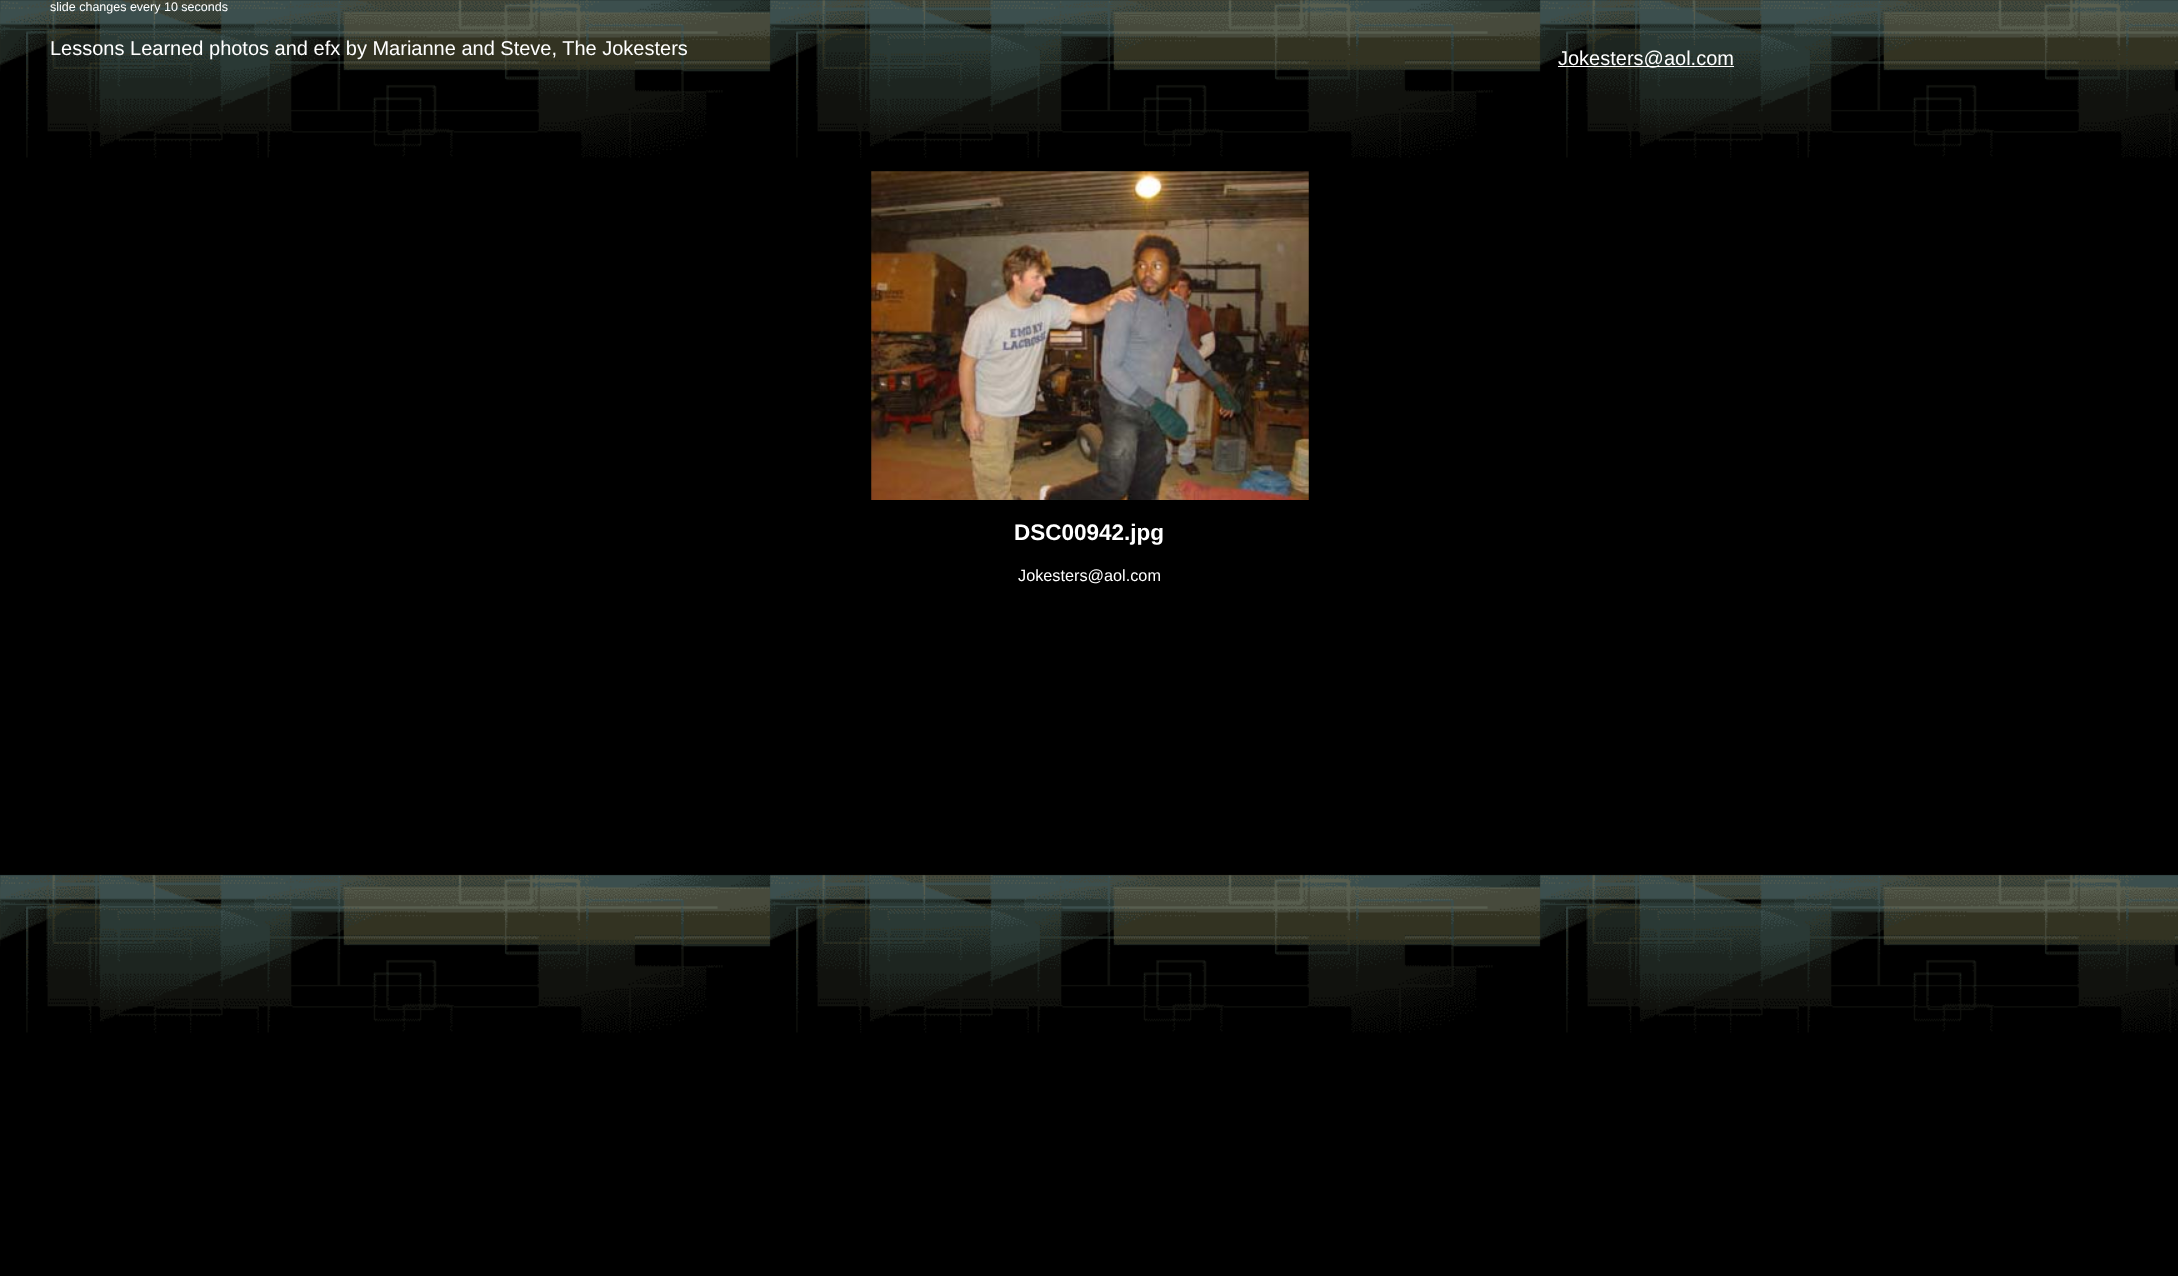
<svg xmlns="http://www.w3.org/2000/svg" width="2178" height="1276">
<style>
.a{font:12.5px Liberation Sans;fill:#fff}
.b{font:20px Liberation Sans;fill:#fff}
.c{font:bold 22.5px Liberation Sans;fill:#fff}
.d{font:16.25px Liberation Sans;fill:#fff}
</style>
<rect width="100%" height="100%" fill="#000"/>
<image href="1.png" x="0" y="0" width="2178" height="1033"/>
<path fill="#fff" d="M1558 66h176v1H1558z"/>
<image href="2.png" x="871" y="171" width="438" height="329"/>
<text class="a" x="50" y="11">slide changes every 10 seconds</text>
<text class="b" x="50" y="55">Lessons Learned photos and efx by Marianne and Steve, The Jokesters</text>
<text class="b" x="1558" y="65">Jokesters@aol.com</text>
<text class="c" x="1014" y="540">DSC00942.jpg</text>
<text class="d" x="1018" y="581">Jokesters@aol.com</text>
</svg>
